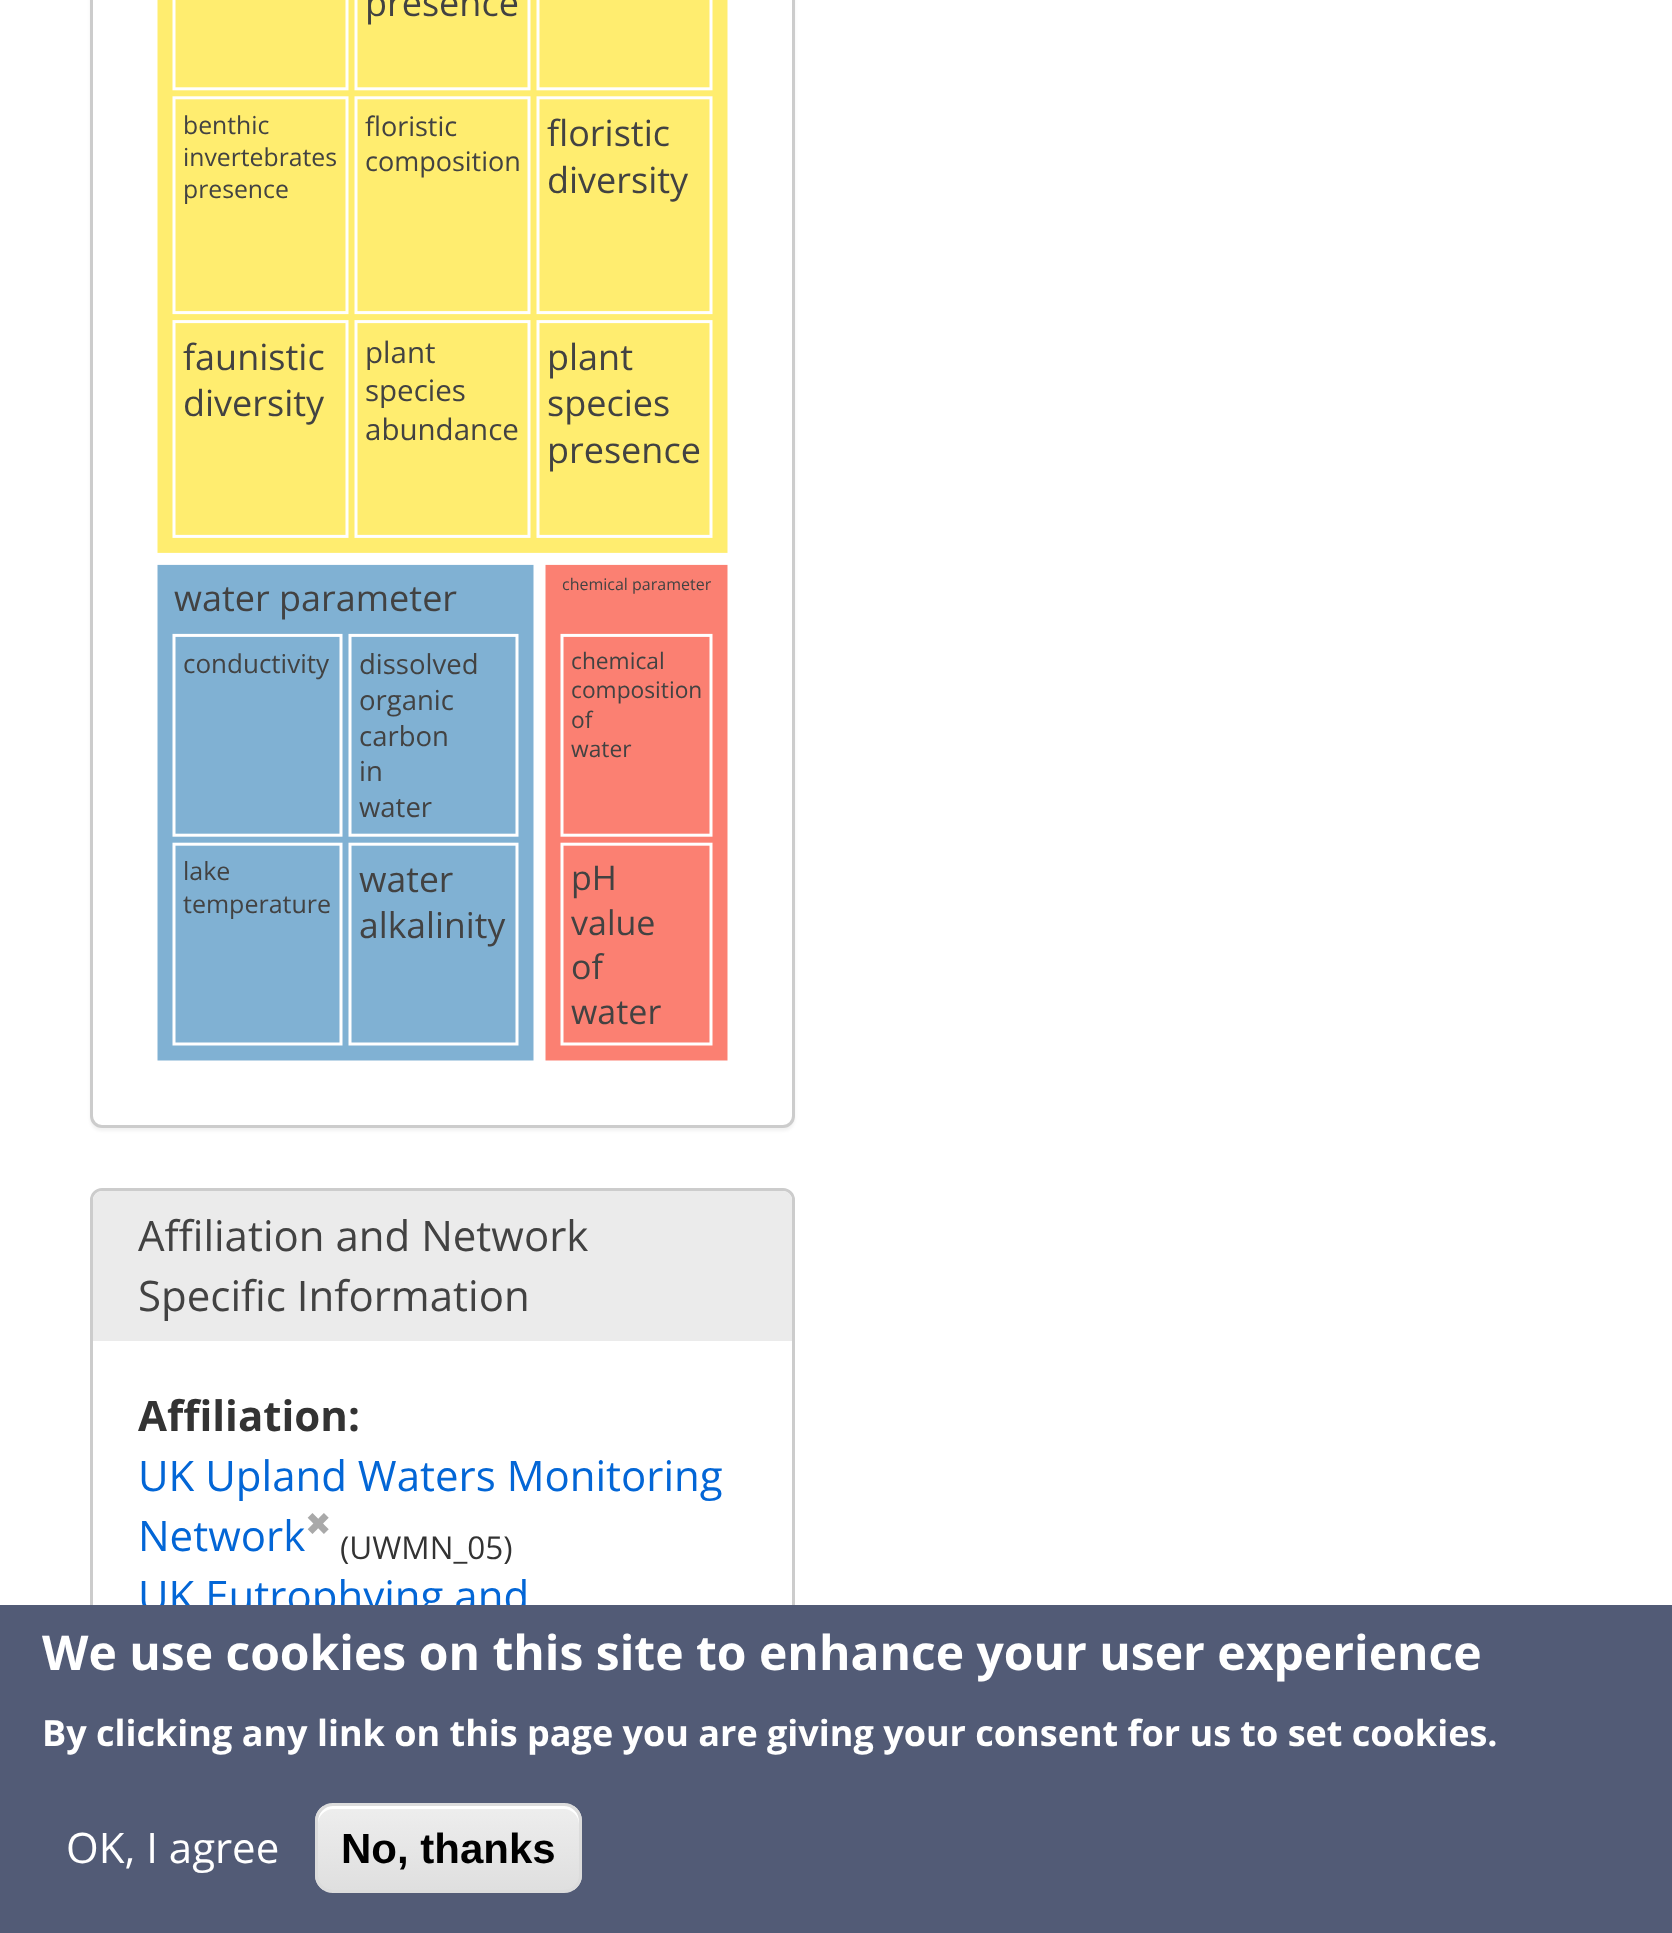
<svg xmlns="http://www.w3.org/2000/svg" width="1672" height="1933">
<style>
.a{font:36px Open Sans;fill:#424242}
.b{font:24.75px Open Sans;fill:#424242}
.c{font:27px Open Sans;fill:#424242}
.d{font:29.5px Open Sans;fill:#424242}
.e{font:16px Open Sans;fill:#424242}
.f{font:26px Open Sans;fill:#424242}
.g{font:27.5px Open Sans;fill:#424242}
.h{font:22.75px Open Sans;fill:#424242}
.i{font:25px Open Sans;fill:#424242}
.j{font:35.5px Open Sans;fill:#424242}
.k{font:34px Open Sans;fill:#424242}
.l{font:42px Open Sans;fill:#424242}
.m{font:bold 42px Open Sans;fill:#333}
.n{font:42px Open Sans;fill:#0366d6}
.o{font:31.5px DejaVu Sans;fill:#a9a9a9}
.p{font:31.5px Open Sans;fill:#333}
.q{font:bold 48px Open Sans;fill:#fff}
.r{font:bold 36px Open Sans;fill:#fff}
.s{font:42px Open Sans;fill:#fff}
.t{font:bold 42px Liberation Sans;fill:#000}
</style>
<defs>
<clipPath id="clip1"><rect x="315" y="1803" width="267" height="90" rx="18"/></clipPath>
<linearGradient id="g1" gradientUnits="userSpaceOnUse" x1="449" y1="1806" x2="449" y2="1890"><stop offset="0.05" stop-color="#ededed"/><stop offset="1" stop-color="#dfdfdf"/></linearGradient>
</defs>
<rect width="100%" height="100%" fill="#fff"/>
<rect fill="#0000000d" filter="blur(1.5px)" x="90" y="-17" width="705" height="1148" rx="12"/>
<rect fill="#fff" stroke="#ccc" stroke-width="3" x="91.5" y="-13.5" width="702" height="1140" rx="10.5"/>
<image href="1.png" x="157" y="0" width="571" height="1061"/>
<rect fill="none" stroke="#ccc" stroke-width="3" x="91.5" y="1189.5" width="702" height="603" rx="10.5"/>
<path fill="#ebebeb" d="M102 1191h681c5 0 9 4 9 9v141h-699v-141c0-5 4-9 9-9z"/>
<text class="a" x="365" y="16">presence</text>
<text class="b" x="183" y="134">benthic</text>
<text class="c" x="365" y="136">floristic</text>
<text class="a" x="547" y="146">floristic</text>
<text class="b" x="183" y="166">invertebrates</text>
<text class="c" x="365" y="171">composition</text>
<text class="a" x="547" y="193">diversity</text>
<text class="b" x="183" y="198">presence</text>
<text class="a" x="183" y="370">faunistic</text>
<text class="d" x="365" y="363">plant</text>
<text class="a" x="547" y="370">plant</text>
<text class="a" x="183" y="416">diversity</text>
<text class="d" x="365" y="401">species</text>
<text class="a" x="547" y="416">species</text>
<text class="d" x="365" y="440">abundance</text>
<text class="a" x="547" y="463">presence</text>
<text class="a" x="174" y="611">water parameter</text>
<text class="e" x="562" y="590">chemical parameter</text>
<text class="f" x="183" y="673">conductivity</text>
<text class="g" x="359" y="674">dissolved</text>
<text class="h" x="571" y="669">chemical</text>
<text class="g" x="359" y="710">organic</text>
<text class="h" x="571" y="698">composition</text>
<text class="h" x="571" y="728">of</text>
<text class="g" x="359" y="746">carbon</text>
<text class="h" x="571" y="757">water</text>
<text class="g" x="359" y="781">in</text>
<text class="g" x="359" y="817">water</text>
<text class="i" x="183" y="880">lake</text>
<text class="j" x="359" y="892">water</text>
<text class="k" x="571" y="890">pH</text>
<text class="i" x="183" y="913">temperature</text>
<text class="j" x="359" y="938">alkalinity</text>
<text class="k" x="571" y="935">value</text>
<text class="k" x="571" y="979">of</text>
<text class="k" x="571" y="1024">water</text>
<text class="l" x="138" y="1251">Affiliation and Network</text>
<text class="l" x="138" y="1311">Specific Information</text>
<text class="m" x="138" y="1431">Affiliation:</text>
<text class="n" x="138" y="1491">UK Upland Waters Monitoring</text>
<text class="n" x="138" y="1551">Network</text>
<text class="o" x="305" y="1535">✖</text>
<text class="p" x="340" y="1559">(UWMN_05)</text>
<text class="n" x="138" y="1611">UK Eutrophying and</text>
<path fill="#525b76" d="M0 1605h1672v328H0z"/>
<text class="q" x="42" y="1670">We use cookies on this site to enhance your user experience</text>
<text class="r" x="42" y="1746">By clicking any link on this page you are giving your consent for us to set cookies.</text>
<text class="s" x="66" y="1863">OK, I agree</text>
<g clip-path="url(#clip1)">
<path fill="url(#g1)" d="M315 1806h267v84H315z"/>
</g>
<path fill="#fff" d="M333 1809h231c8 0 15 7 15 15v-3c0-8-7-15-15-15h-231c-8 0-15 7-15 15v3c0-8 7-15 15-15z"/>
<rect fill="none" stroke="#dcdcdc" stroke-width="3" x="316.5" y="1804.5" width="264" height="87" rx="16.5"/>
<text class="t" x="341" y="1863">No, thanks</text>
</svg>
